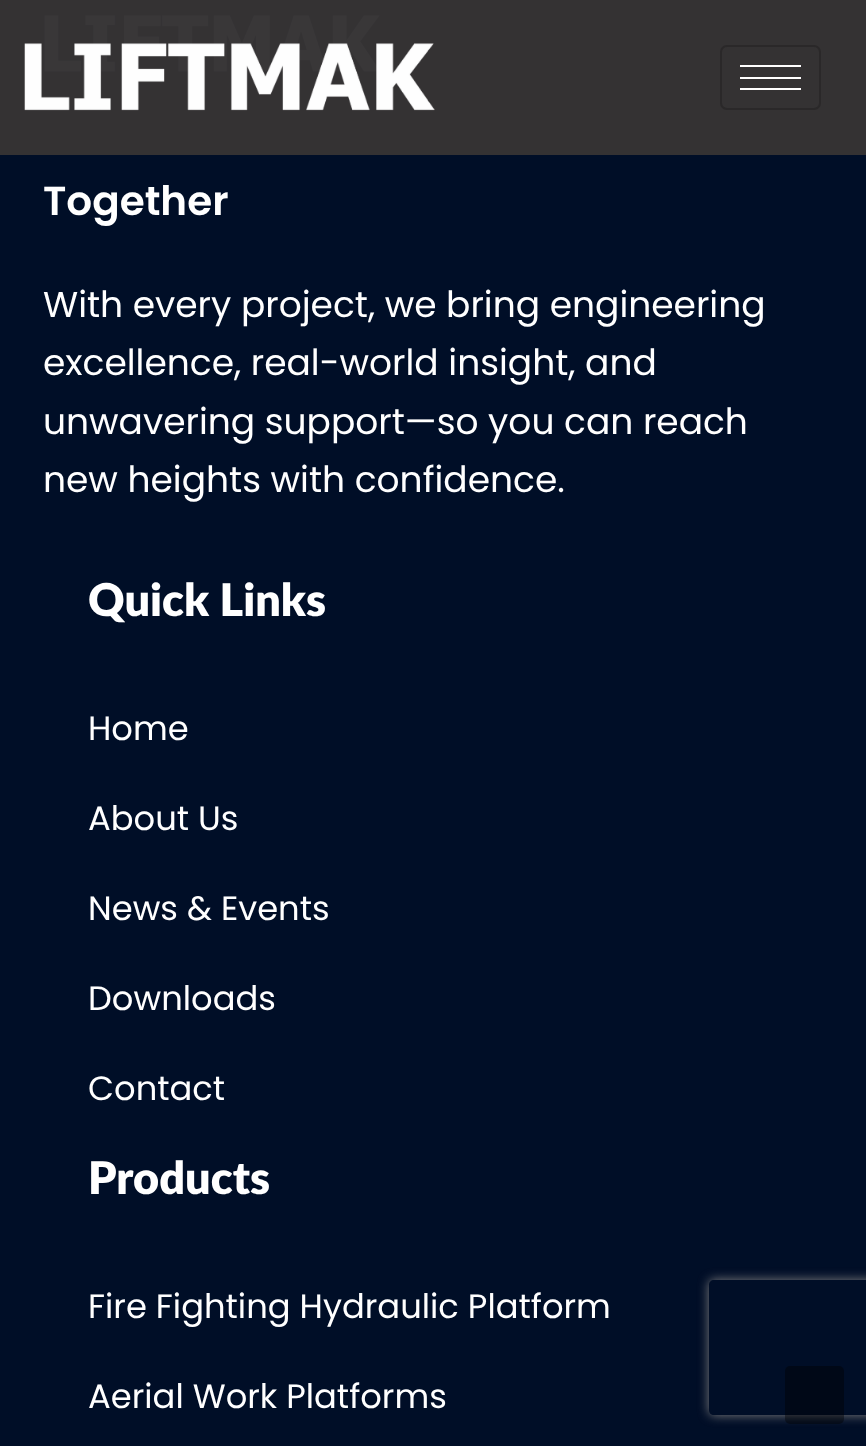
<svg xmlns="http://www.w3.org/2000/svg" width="866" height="1446">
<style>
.a{font:600 40.5px Poppins;fill:#fff}
.b{font:36px Poppins;fill:#fff}
.c{font:800 45px Lato;fill:#fff}
.d{font:33.75px Poppins;fill:#fff}
</style>
<defs>
<clipPath id="clip1"><path d="M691 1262h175v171h-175zm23 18h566c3 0 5 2 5 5v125c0 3-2 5-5 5h-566c-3 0-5-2-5-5v-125c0-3 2-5 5-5z" clip-rule="evenodd"/></clipPath>
</defs>
<rect width="100%" height="100%" fill="#000e27"/>
<image href="2.png" x="44" y="15" width="336" height="57"/>
<path fill="#353334fa" d="M0 0h866v155H0z"/>
<image href="1.png" x="24" y="43" width="411" height="68"/>
<rect fill="none" stroke="#2a2829" stroke-width="2" x="721" y="46" width="99" height="63" rx="6"/>
<path fill="#fff" d="M740 65h61v2H740z"/>
<path fill="#fff" d="M740 77h61v2H740z"/>
<path fill="#fff" d="M740 88h61v2H740z"/>
<g clip-path="url(#clip1)">
<rect fill="#808080" filter="blur(5.5px)" x="709" y="1280" width="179" height="135" rx="5"/>
</g>
<rect fill="#00000066" x="785" y="1366" width="59" height="58" rx="5"/>
<text class="a" x="43" y="215">Together</text>
<text class="b" x="43" y="317">With every project, we bring engineering</text>
<text class="b" x="43" y="375">excellence, real-world insight, and</text>
<text class="b" x="43" y="434">unwavering support—so you can reach</text>
<text class="b" x="43" y="492">new heights with confidence.</text>
<text class="c" x="88" y="616">Quick Links</text>
<text class="d" x="88" y="740">Home</text>
<text class="d" x="88" y="830">About Us</text>
<text class="d" x="88" y="920">News &amp; Events</text>
<text class="d" x="88" y="1010">Downloads</text>
<text class="d" x="88" y="1100">Contact</text>
<text class="c" x="88" y="1194">Products</text>
<text class="d" x="88" y="1318">Fire Fighting Hydraulic Platform</text>
<text class="d" x="88" y="1408">Aerial Work Platforms</text>
</svg>
